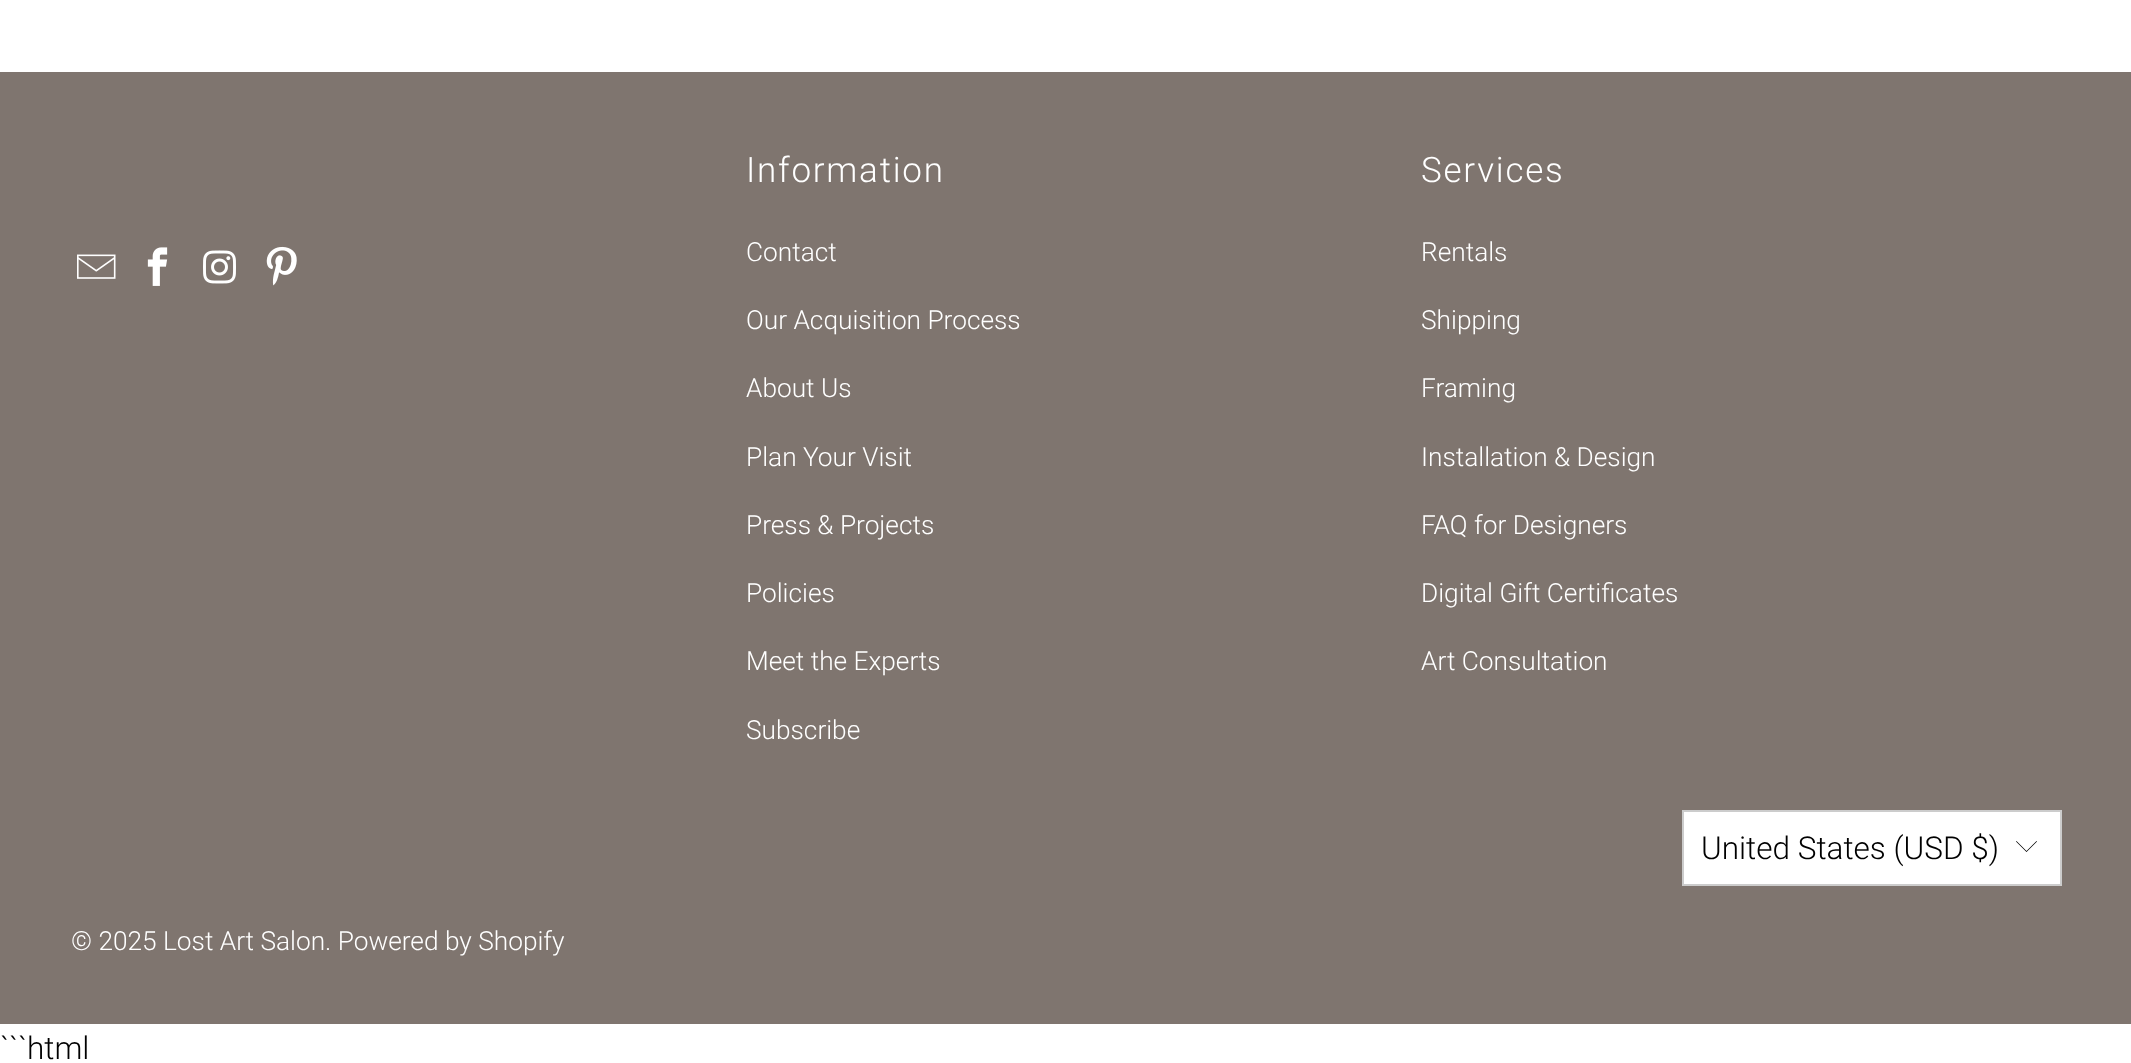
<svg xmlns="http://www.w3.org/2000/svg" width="2131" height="1063">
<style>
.a{font:300 35px Roboto;letter-spacing:1.75px;fill:#fff}
.b{font:300 26.25px Roboto;fill:#fff}
.c{font:300 31.5px Roboto;fill:#000}
</style>
<rect width="100%" height="100%" fill="#fff"/>
<path fill="#7f756f" d="M0 72h2131v952H0z"/>
<image href="1.png" x="77" y="254" width="39" height="25"/>
<image href="2.png" x="147" y="247" width="21" height="39"/>
<image href="3.png" x="203" y="250" width="33" height="34"/>
<image href="4.png" x="266" y="246" width="31" height="40"/>
<path fill="#fff" stroke="#ccc" stroke-width="2" d="M1683 811h378v74H1683z"/>
<path fill="#000" d="M2026.5 852l-10.5-10.5l.5-.5l10 10l10-10l.5 .5z"/>
<text class="a" x="746" y="182">Information</text>
<text class="b" x="746" y="261">Contact</text>
<text class="b" x="746" y="329">Our Acquisition Process</text>
<text class="b" x="746" y="397">About Us</text>
<text class="b" x="746" y="466">Plan Your Visit</text>
<text class="b" x="746" y="534">Press &amp; Projects</text>
<text class="b" x="746" y="602">Policies</text>
<text class="b" x="746" y="670">Meet the Experts</text>
<text class="b" x="746" y="739">Subscribe</text>
<text class="a" x="1421" y="182">Services</text>
<text class="b" x="1421" y="261">Rentals</text>
<text class="b" x="1421" y="329">Shipping</text>
<text class="b" x="1421" y="397">Framing</text>
<text class="b" x="1421" y="466">Installation &amp; Design</text>
<text class="b" x="1421" y="534">FAQ for Designers</text>
<text class="b" x="1421" y="602">Digital Gift Certificates</text>
<text class="b" x="1421" y="670">Art Consultation</text>
<text class="c" x="1701" y="859">United States (USD $)</text>
<text class="b" x="71" y="950">© 2025 Lost Art Salon</text>
<text class="b" x="325" y="950">. Powered by Shopify</text>
<text class="c" x="0" y="1059">```html</text>
</svg>
